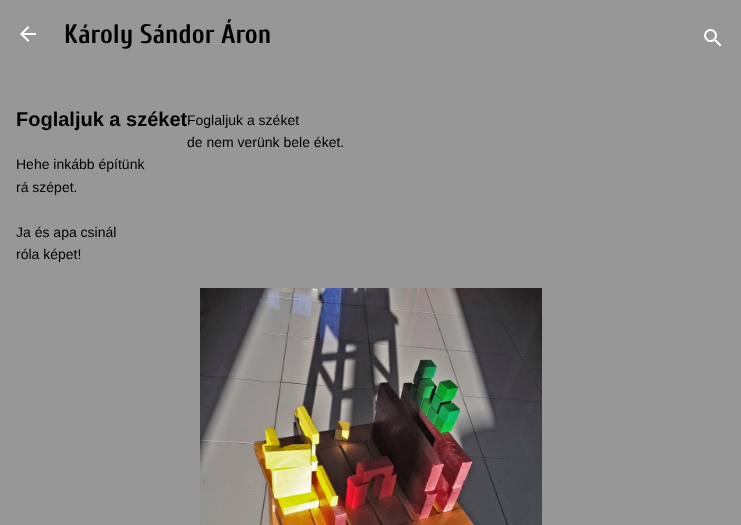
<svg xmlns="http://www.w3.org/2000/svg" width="741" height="525">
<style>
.a{font:bold 26.75px Cuprum;fill:#000}
.b{font:bold 20px Liberation Sans;fill:#000}
.c{font:14px Liberation Sans;fill:#000}
</style>
<rect width="100%" height="100%" fill="#979797"/>
<image href="1.png" x="20" y="26" width="16" height="16"/>
<image href="2.png" x="704" y="29" width="18" height="18"/>
<image href="3.png" x="200" y="288" width="342" height="237"/>
<text class="a" x="64" y="43">Károly Sándor Áron</text>
<text class="b" x="16" y="126">Foglaljuk a széket</text>
<text class="c" x="187" y="125">Foglaljuk a széket</text>
<text class="c" x="187" y="147">de nem verünk bele éket.</text>
<text class="c" x="16" y="169">Hehe inkább építünk</text>
<text class="c" x="16" y="192">rá szépet.</text>
<text class="c" x="16" y="237">Ja és apa csinál</text>
<text class="c" x="16" y="259">róla képet!</text>
</svg>
